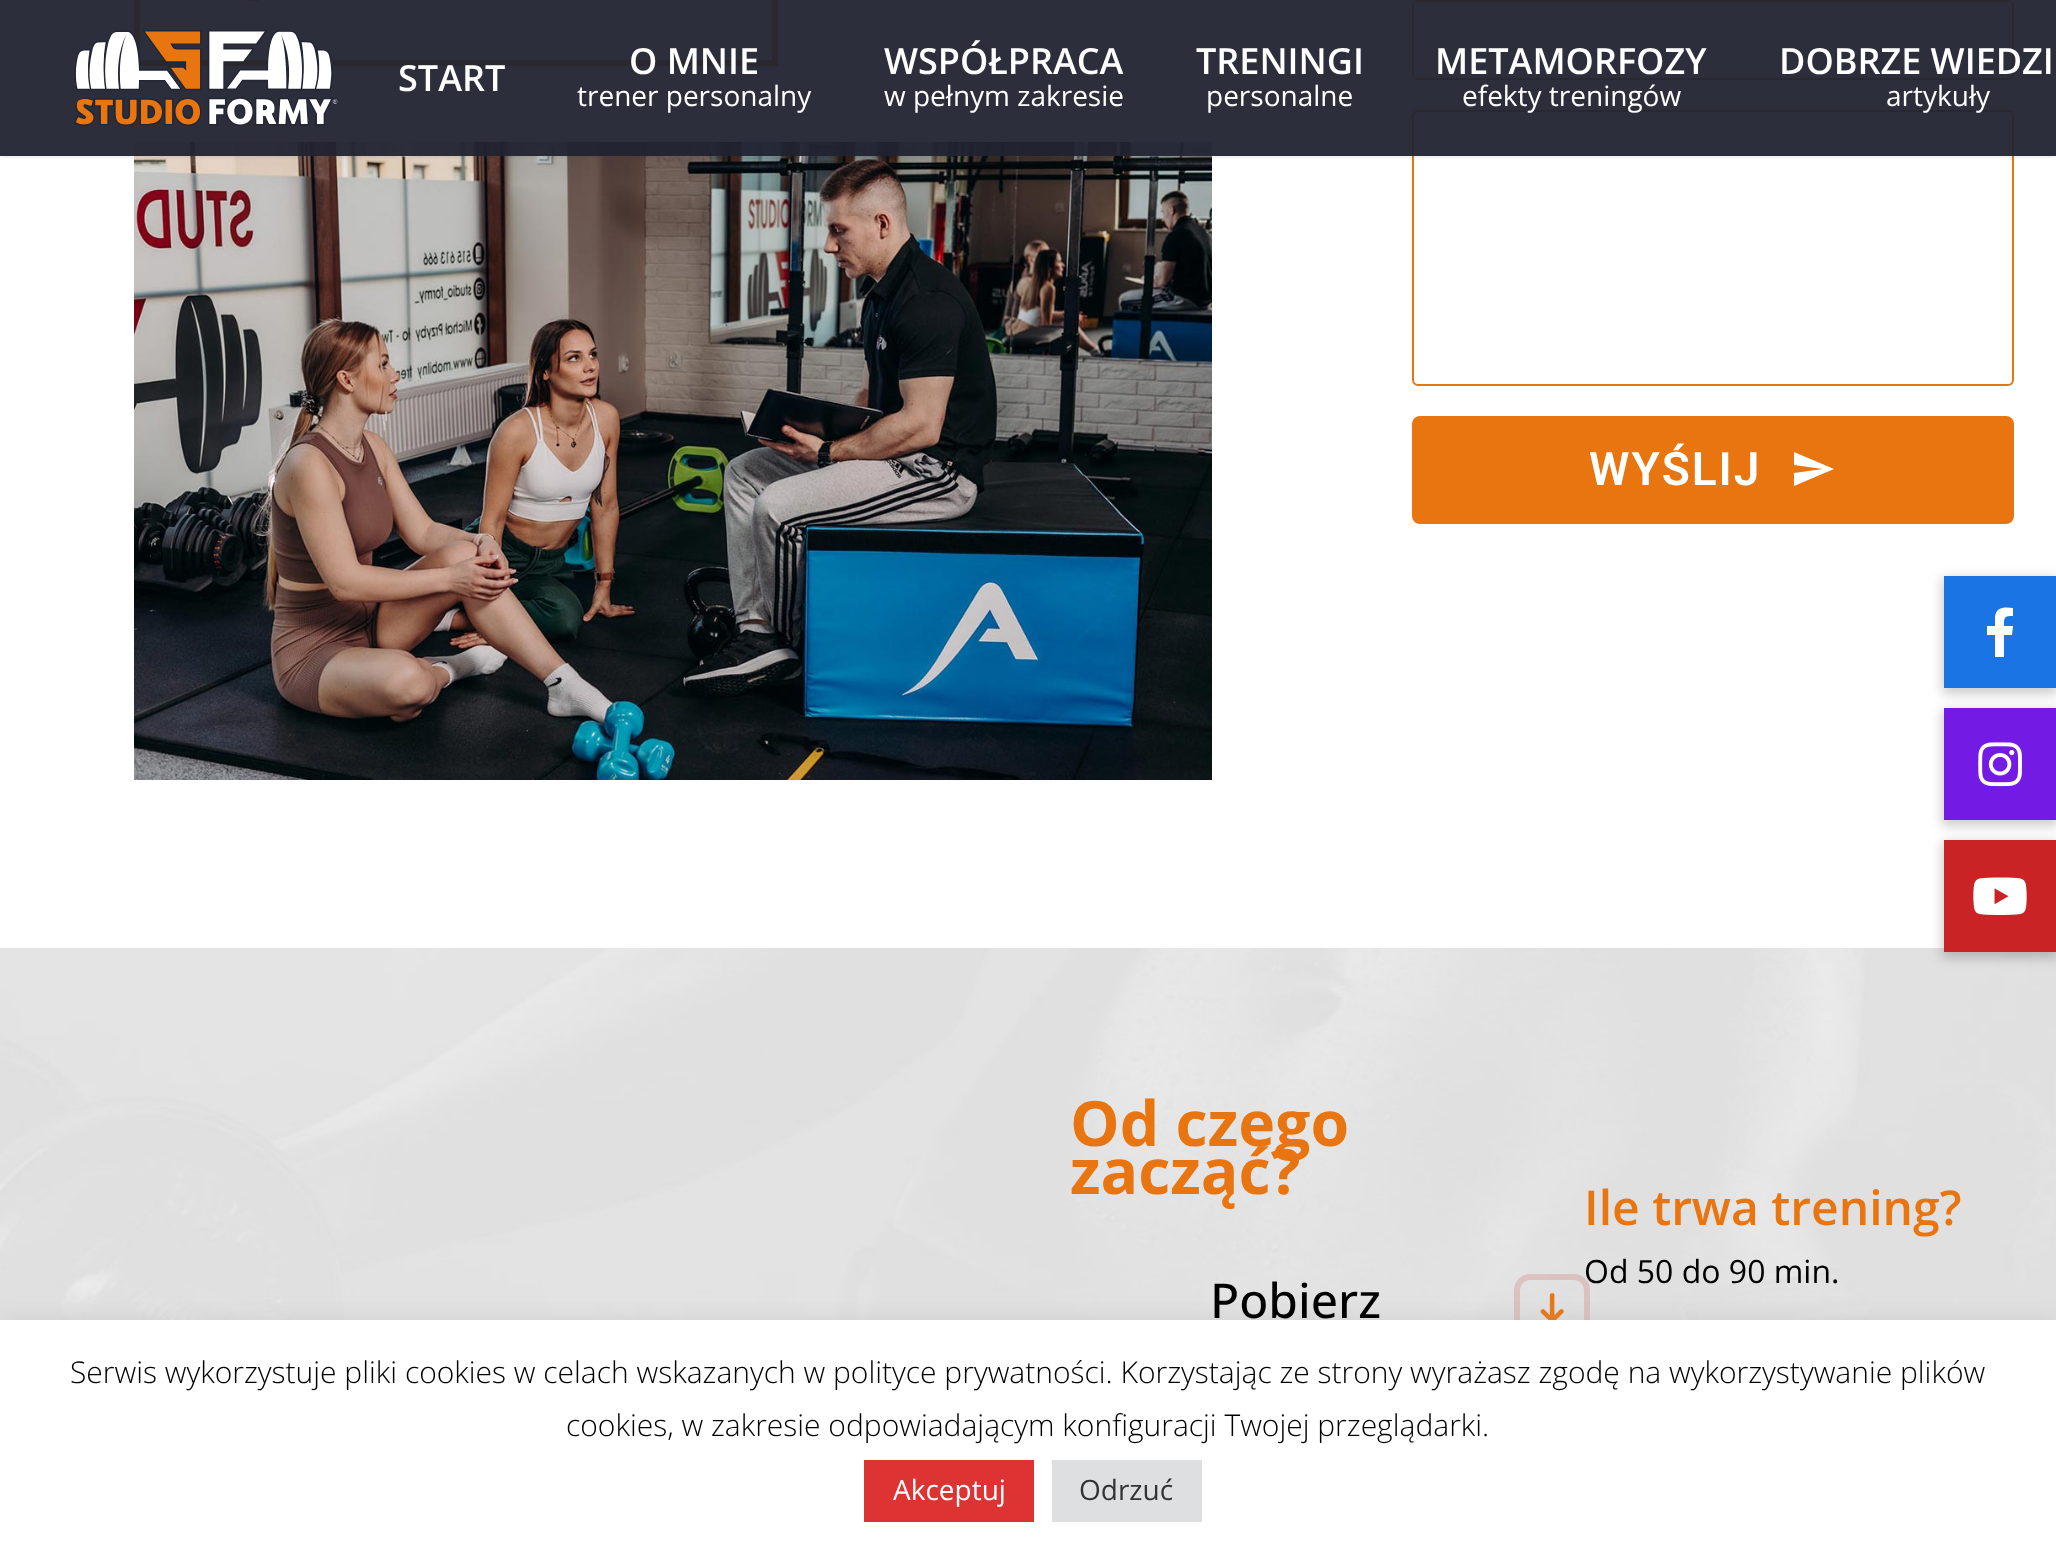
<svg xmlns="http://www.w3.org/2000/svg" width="2056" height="1546">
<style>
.a{font:600 36px Open Sans;fill:#fff}
.b{font:28px Open Sans;fill:#fff}
.c{font:600 46px Roboto;letter-spacing:2px;fill:#fff}
.d{font:bold 62.5px Open Sans;fill:#e87510}
.e{font:500 48px Open Sans;fill:#000}
.f{font:600 48px Open Sans;fill:#e87510}
.g{font:32px Open Sans;fill:#000}
.h{font:300 30px Open Sans;fill:#000}
.i{font:28px Open Sans;fill:#333}
</style>
<defs>
<clipPath id="clip1"><path d="M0 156h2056v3H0z"/></clipPath>
</defs>
<rect width="100%" height="100%" fill="#fff"/>
<path fill="none" stroke="#e87510" stroke-width="6" d="M137 -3h638v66H137z"/>
<image href="2.png" x="246" y="0" width="13" height="1"/>
<image href="3.png" x="134" y="142" width="1078" height="638"/>
<rect fill="none" stroke="#e87510" stroke-width="2" x="1413" y="1" width="600" height="78" rx="5"/>
<rect fill="none" stroke="#e87510" stroke-width="2" x="1413" y="111" width="600" height="274" rx="5"/>
<g clip-path="url(#clip1)">
<path fill="#38455433" filter="blur(2px)" d="M0 0h2056v156H0z"/>
</g>
<path fill="#212331f2" d="M0 0h2056v156H0z"/>
<image href="1.png" x="74" y="30" width="264" height="96"/>
<rect fill="#e87510" x="1412" y="416" width="602" height="108" rx="8"/>
<path fill="#fff" d="M1794 486l40-17l-40-17v13l29 4l-29 4z"/>
<image href="4.png" x="2055" y="952" width="1" height="368"/>
<image href="5.png" x="0" y="948" width="2056" height="372"/>
<rect fill="none" stroke="#c233262e" stroke-width="6" x="1517" y="1277" width="70" height="70" rx="13"/>
<image href="6.png" x="1540" y="1293" width="24" height="27"/>
<path fill="#00000033" filter="blur(6px)" d="M1942 578h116v116H1942z"/>
<path fill="#1b74e4" d="M1944 576h112v112H1944z"/>
<path fill="#fff" d="M2012 635h-8v22h-9v-22h-8v-9h8v-9c1-11 11-10 18-9v8c-9 0-9 1-9 10h9z"/>
<path fill="#00000033" filter="blur(6px)" d="M1942 710h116v116H1942z"/>
<path fill="#731be4" d="M1944 708h112v112H1944z"/>
<image href="7.png" x="1978" y="742" width="44" height="45"/>
<path fill="#00000033" filter="blur(6px)" d="M1942 842h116v116H1942z"/>
<path fill="#ca2325" d="M1944 840h112v112H1944z"/>
<image href="8.png" x="1973" y="877" width="54" height="38"/>
<path fill="#acabab4d" filter="blur(10px)" d="M0 1318h2056v226H0z"/>
<path fill="#fff" d="M0 1320h2056v226H0z"/>
<path fill="#d33" d="M864 1460h170v62H864z"/>
<path fill="#dedfe0" d="M1052 1460h150v62H1052z"/>
<text class="a" x="398" y="91">START</text>
<text class="a" x="629" y="74">O MNIE</text>
<text class="b" x="577" y="106">trener personalny</text>
<text class="a" x="884" y="74">WSPÓŁPRACA</text>
<text class="b" x="884" y="106">w pełnym zakresie</text>
<text class="a" x="1196" y="74">TRENINGI</text>
<text class="b" x="1206" y="106">personalne</text>
<text class="a" x="1435" y="74">METAMORFOZY</text>
<text class="b" x="1462" y="106">efekty treningów</text>
<text class="a" x="1779" y="74">DOBRZE WIEDZI</text>
<text class="b" x="1886" y="106">artykuły</text>
<text class="c" x="1589" y="485">WYŚLIJ</text>
<text class="d" x="1070" y="1146">Od czego</text>
<text class="d" x="1070" y="1194">zacząć?</text>
<text class="e" x="1210" y="1318">Pobierz</text>
<text class="f" x="1584" y="1225">Ile trwa trening?</text>
<text class="g" x="1584" y="1283">Od 50 do 90 min.</text>
<text class="h" x="70" y="1383">Serwis wykorzystuje pliki cookies w celach wskazanych w polityce prywatności. Korzystając ze strony wyrażasz zgodę na wykorzystywanie plików</text>
<text class="h" x="566" y="1436">cookies, w zakresie odpowiadającym konfiguracji Twojej przeglądarki.</text>
<text class="b" x="893" y="1500">Akceptuj</text>
<text class="i" x="1079" y="1500">Odrzuć</text>
</svg>
